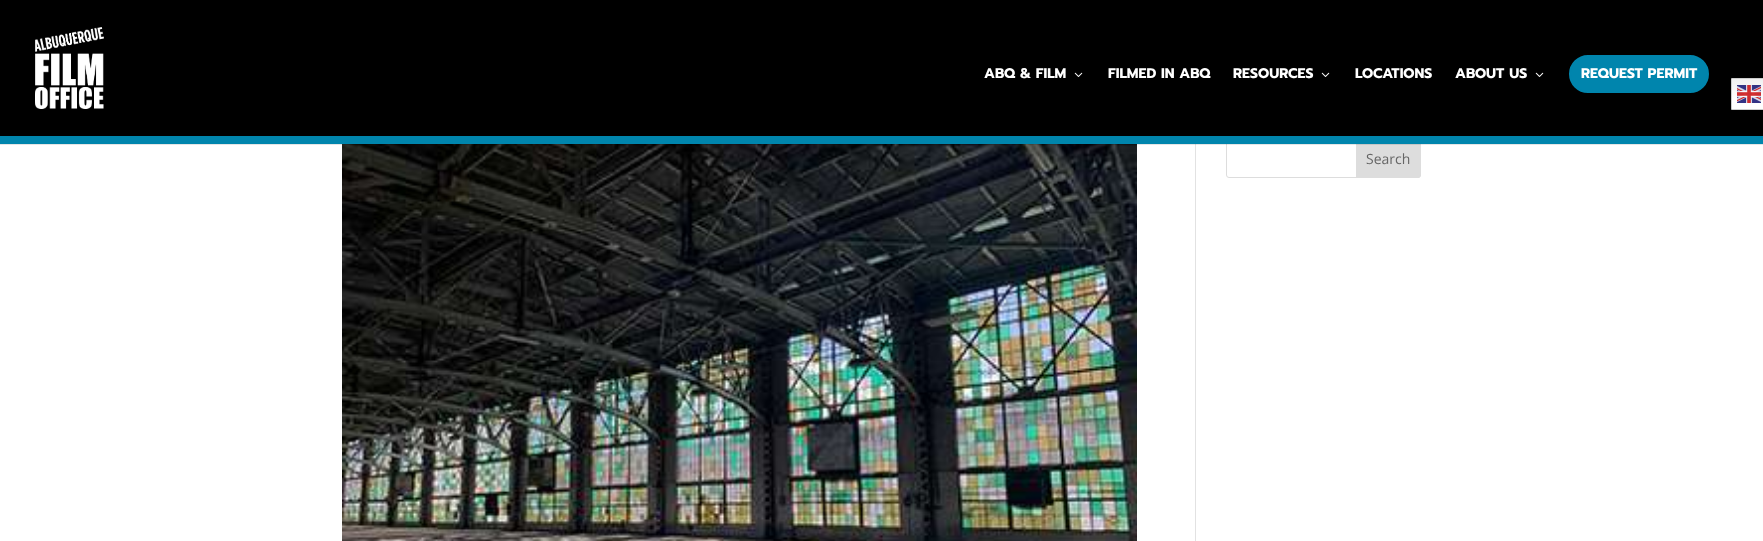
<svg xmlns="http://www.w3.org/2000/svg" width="1763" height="541">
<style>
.a{font:bold 14px Prompt;fill:#fff}
.b{font:14px Open Sans;fill:#666}
</style>
<defs>
<linearGradient id="g1" gradientUnits="userSpaceOnUse" x1="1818" y1="78" x2="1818" y2="110"><stop offset="0" stop-color="#efefef"/><stop offset="0.7" stop-color="#fff"/></linearGradient>
</defs>
<rect width="100%" height="100%" fill="#fff"/>
<path fill="#e2e2e2" d="M1195 144h1v397H1195z"/>
<image href="4.png" x="342" y="144" width="795" height="397"/>
<rect fill="none" stroke="#ddd" x="1226.5" y="138.5" width="194" height="39" rx="2.5"/>
<path fill="#ddd" stroke="#ddd" d="M1356.5 138.5h61.5c1.5 0 2.5 1 2.5 2.5v34c0 1.5-1 2.5-2.5 2.5h-61.5z"/>
<path fill="#0000001a" d="M0 144h1763v1H0z"/>
<path fill="#000" d="M0 0h1763v136H0z"/>
<path fill="#0085ad" d="M0 136h1763v8H0z"/>
<image href="1.png" x="35" y="27" width="69" height="82"/>
<image href="2.png" x="1074" y="72" width="9" height="5"/>
<image href="2.png" x="1321" y="72" width="9" height="5"/>
<image href="2.png" x="1535" y="72" width="9" height="5"/>
<rect fill="#0085ad" stroke="#0085ad" stroke-width="2" x="1570" y="56" width="138" height="36" rx="18"/>
<path fill="url(#g1)" d="M1732 79h31v30H1732z"/>
<path fill="none" stroke="#ccc" d="M1731.5 78.5h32v31H1731.5z"/>
<image href="3.png" x="1737" y="85" width="24" height="18"/>
<text class="a" x="984" y="78">ABQ &amp; FILM</text>
<text class="a" x="1108" y="78">FILMED IN ABQ</text>
<text class="a" x="1233" y="78">RESOURCES</text>
<text class="a" x="1355" y="78">LOCATIONS</text>
<text class="a" x="1455" y="78">ABOUT US</text>
<text class="a" x="1581" y="78">REQUEST PERMIT</text>
<text class="b" x="1366" y="164">Search</text>
</svg>
